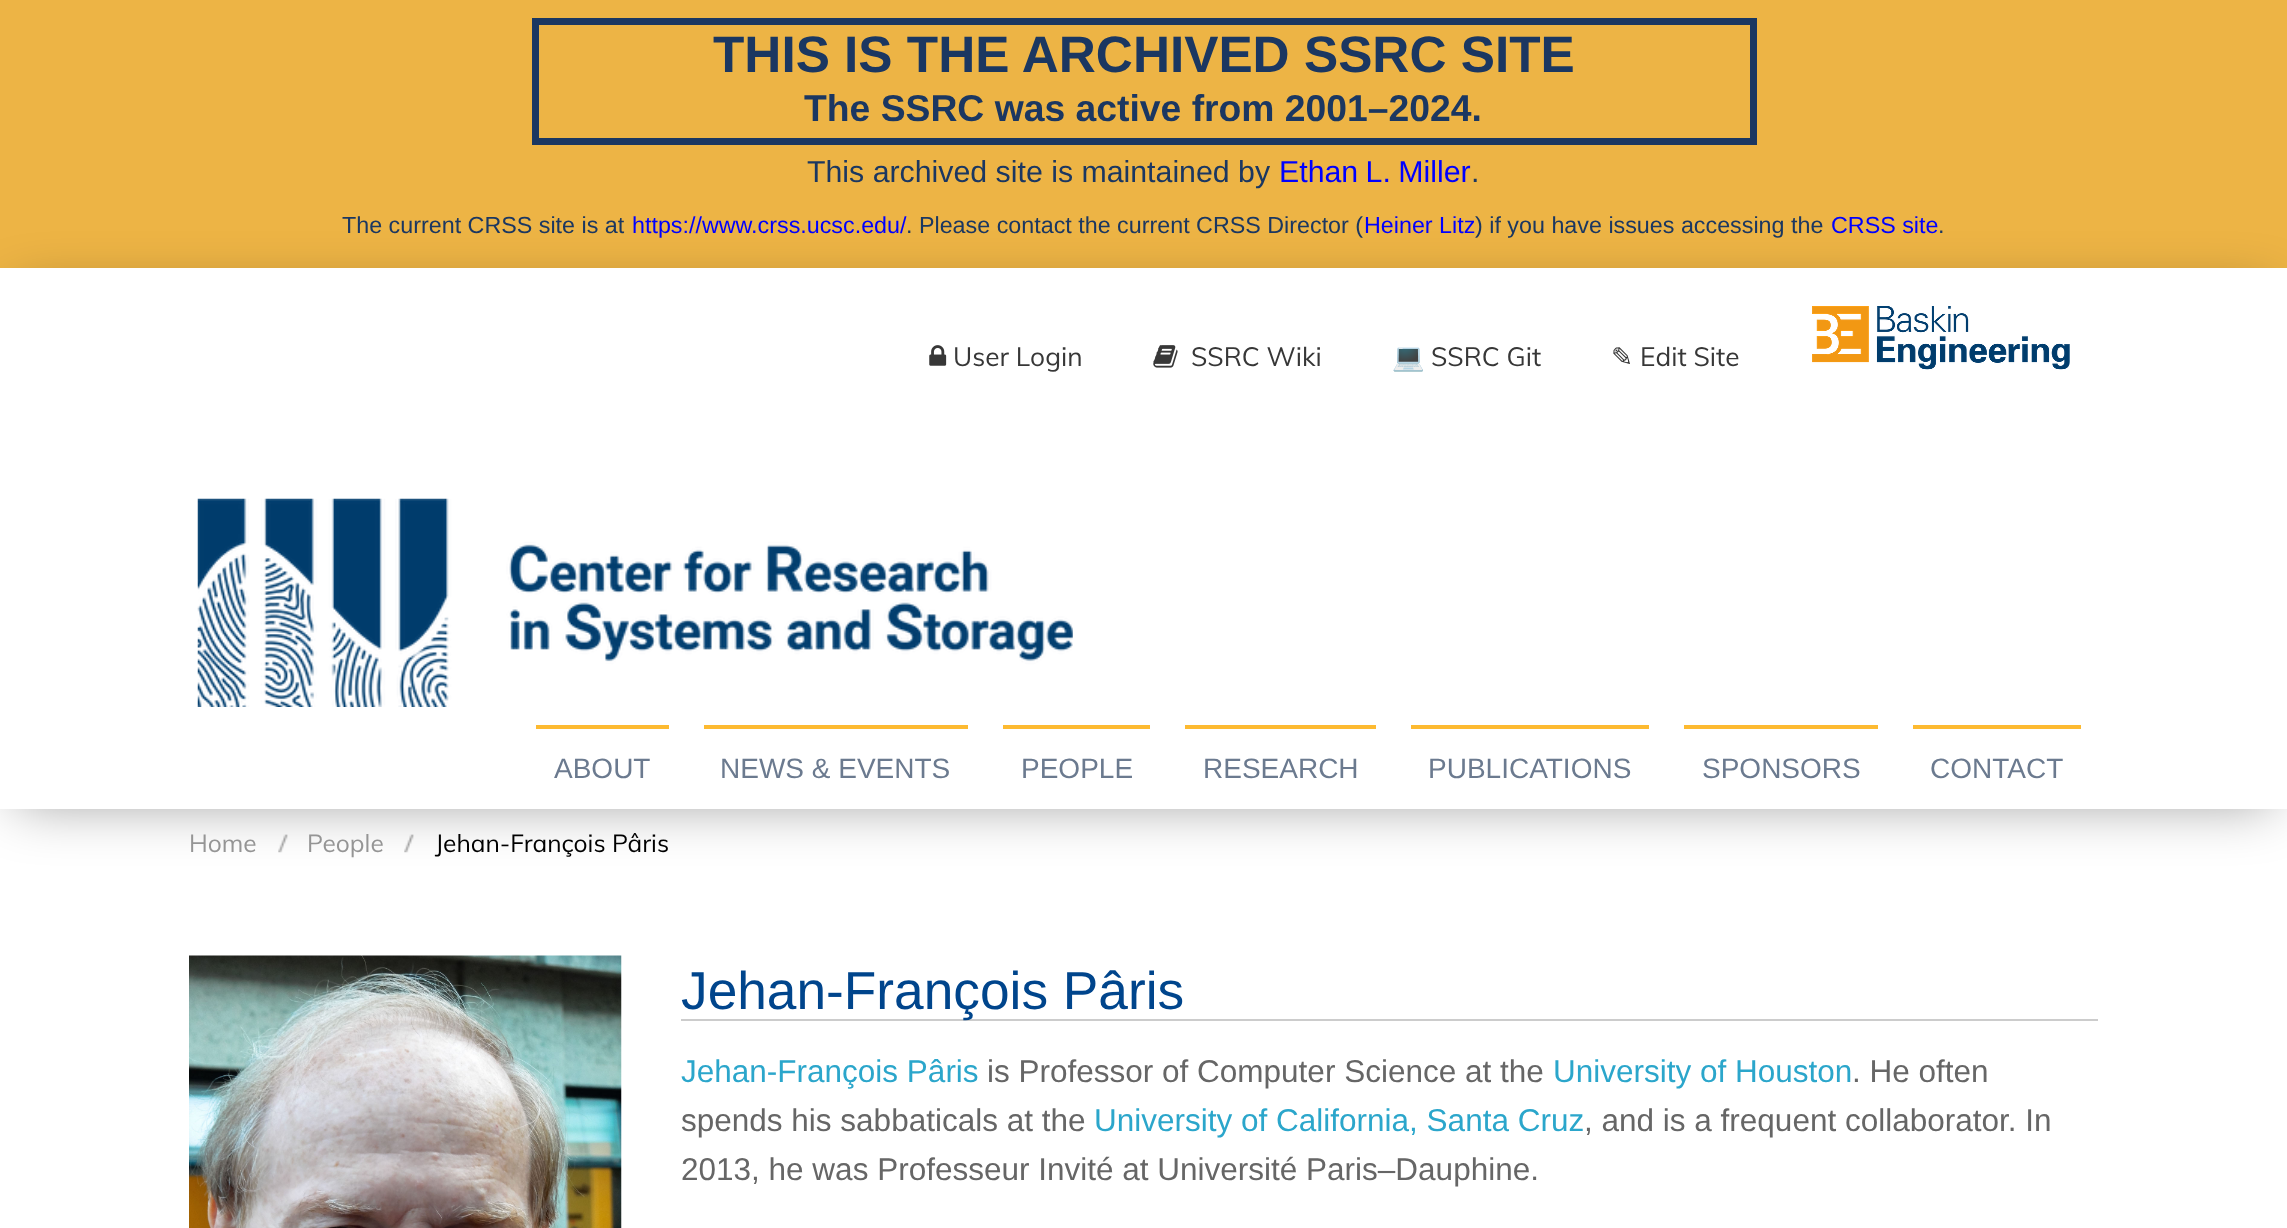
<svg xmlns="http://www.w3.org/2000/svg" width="2287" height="1228">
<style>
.a{font:bold 51.3px Liberation Sans;fill:#1b3761}
.b{font:bold 37.3px Liberation Sans;fill:#1b3761}
.c{font:30.3px Liberation Sans;fill:#1b3761}
.d{font:30.3px Liberation Sans;fill:#00f}
.e{font:23.3px Liberation Sans;fill:#1b3761}
.f{font:23.3px Liberation Sans;fill:#00f}
.g{font:26.25px Muli;fill:#373737}
.h{font:26.25px Noto Color Emoji;fill:#373737}
.i{font:26.25px DejaVu Sans;fill:#373737}
.j{font:28px Liberation Sans;fill:#6b7a8f}
.k{font:24.5px Muli;fill:#959595}
.l{font:24.5px Muli;fill:#000}
.m{font:53.25px Liberation Sans;fill:#00458c}
.n{font:31.5px Liberation Sans;fill:#2ba6cb}
.o{font:31.5px Liberation Sans;fill:#666}
</style>
<rect width="100%" height="100%" fill="#fff"/>
<path fill="#edb445" d="M0 0h2287v268H0z"/>
<path fill="none" stroke="#1b3761" stroke-width="7" d="M535.5 21.5h1218v120H535.5z"/>
<image href="5.png" x="278" y="834" width="10" height="19"/>
<image href="5.png" x="404" y="834" width="10" height="19"/>
<path fill="#00000066" filter="blur(28px)" d="M16 294h2256v509H16z"/>
<path fill="#fff" d="M0 268h2287v541H0z"/>
<image href="1.png" x="929" y="345" width="18" height="21"/>
<image href="2.png" x="1153" y="345" width="25" height="23"/>
<image href="3.png" x="1812" y="306" width="258" height="64"/>
<image href="4.png" x="197" y="498" width="876" height="209"/>
<path fill="#fdba31" d="M536 725h133v4H536z"/>
<path fill="#fdba31" d="M704 725h264v4H704z"/>
<path fill="#fdba31" d="M1003 725h147v4H1003z"/>
<path fill="#fdba31" d="M1185 725h191v4H1185z"/>
<path fill="#fdba31" d="M1411 725h238v4H1411z"/>
<path fill="#fdba31" d="M1684 725h194v4H1684z"/>
<path fill="#fdba31" d="M1913 725h168v4H1913z"/>
<image href="6.png" x="189" y="955" width="433" height="273"/>
<path fill="#ccc" d="M681 1019h1417v2H681z"/>
<text class="a" x="713" y="72">THIS IS THE ARCHIVED SSRC SITE</text>
<text class="b" x="804" y="121">The SSRC was active from 2001–2024.</text>
<text class="c" x="807" y="182">This archived site is maintained by</text>
<text class="d" x="1279" y="182" word-spacing="-1">Ethan L. Miller</text>
<text class="c" x="1471" y="182">.</text>
<text class="e" x="342" y="233">The current CRSS site is at</text>
<text class="f" x="632" y="233">https://www.crss.ucsc.edu/</text>
<text class="e" x="906" y="233">. Please contact the current CRSS Director (</text>
<text class="f" x="1364" y="233">Heiner Litz</text>
<text class="e" x="1475" y="233">) if you have issues accessing the</text>
<text class="f" x="1831" y="233">CRSS site</text>
<text class="e" x="1938" y="233">.</text>
<text class="g" x="953" y="366">User Login</text>
<text class="g" x="1191" y="366">SSRC Wiki</text>
<text class="h" x="1392" y="366">💻</text>
<text class="g" x="1431" y="366">SSRC Git</text>
<text class="i" x="1611" y="366">✎</text>
<text class="g" x="1640" y="366">Edit Site</text>
<text class="j" x="554" y="778">ABOUT</text>
<text class="j" x="720" y="778">NEWS &amp; EVENTS</text>
<text class="j" x="1021" y="778">PEOPLE</text>
<text class="j" x="1203" y="778">RESEARCH</text>
<text class="j" x="1428" y="778">PUBLICATIONS</text>
<text class="j" x="1702" y="778">SPONSORS</text>
<text class="j" x="1930" y="778">CONTACT</text>
<text class="k" x="189" y="852">Home</text>
<text class="k" x="307" y="852">People</text>
<text class="l" x="435" y="852">Jehan-François Pâris</text>
<text class="m" x="681" y="1009">Jehan-François Pâris</text>
<text class="n" x="681" y="1082">Jehan-François Pâris</text>
<text class="o" x="987" y="1082">is Professor of Computer Science at the</text>
<text class="n" x="1553" y="1082">University of Houston</text>
<text class="o" x="1852" y="1082">. He often</text>
<text class="o" x="681" y="1131">spends his sabbaticals at the</text>
<text class="n" x="1094" y="1131">University of California, Santa Cruz</text>
<text class="o" x="1584" y="1131">, and is a frequent collaborator. In</text>
<text class="o" x="681" y="1180">2013, he was Professeur Invité at Université Paris–Dauphine.</text>
</svg>
